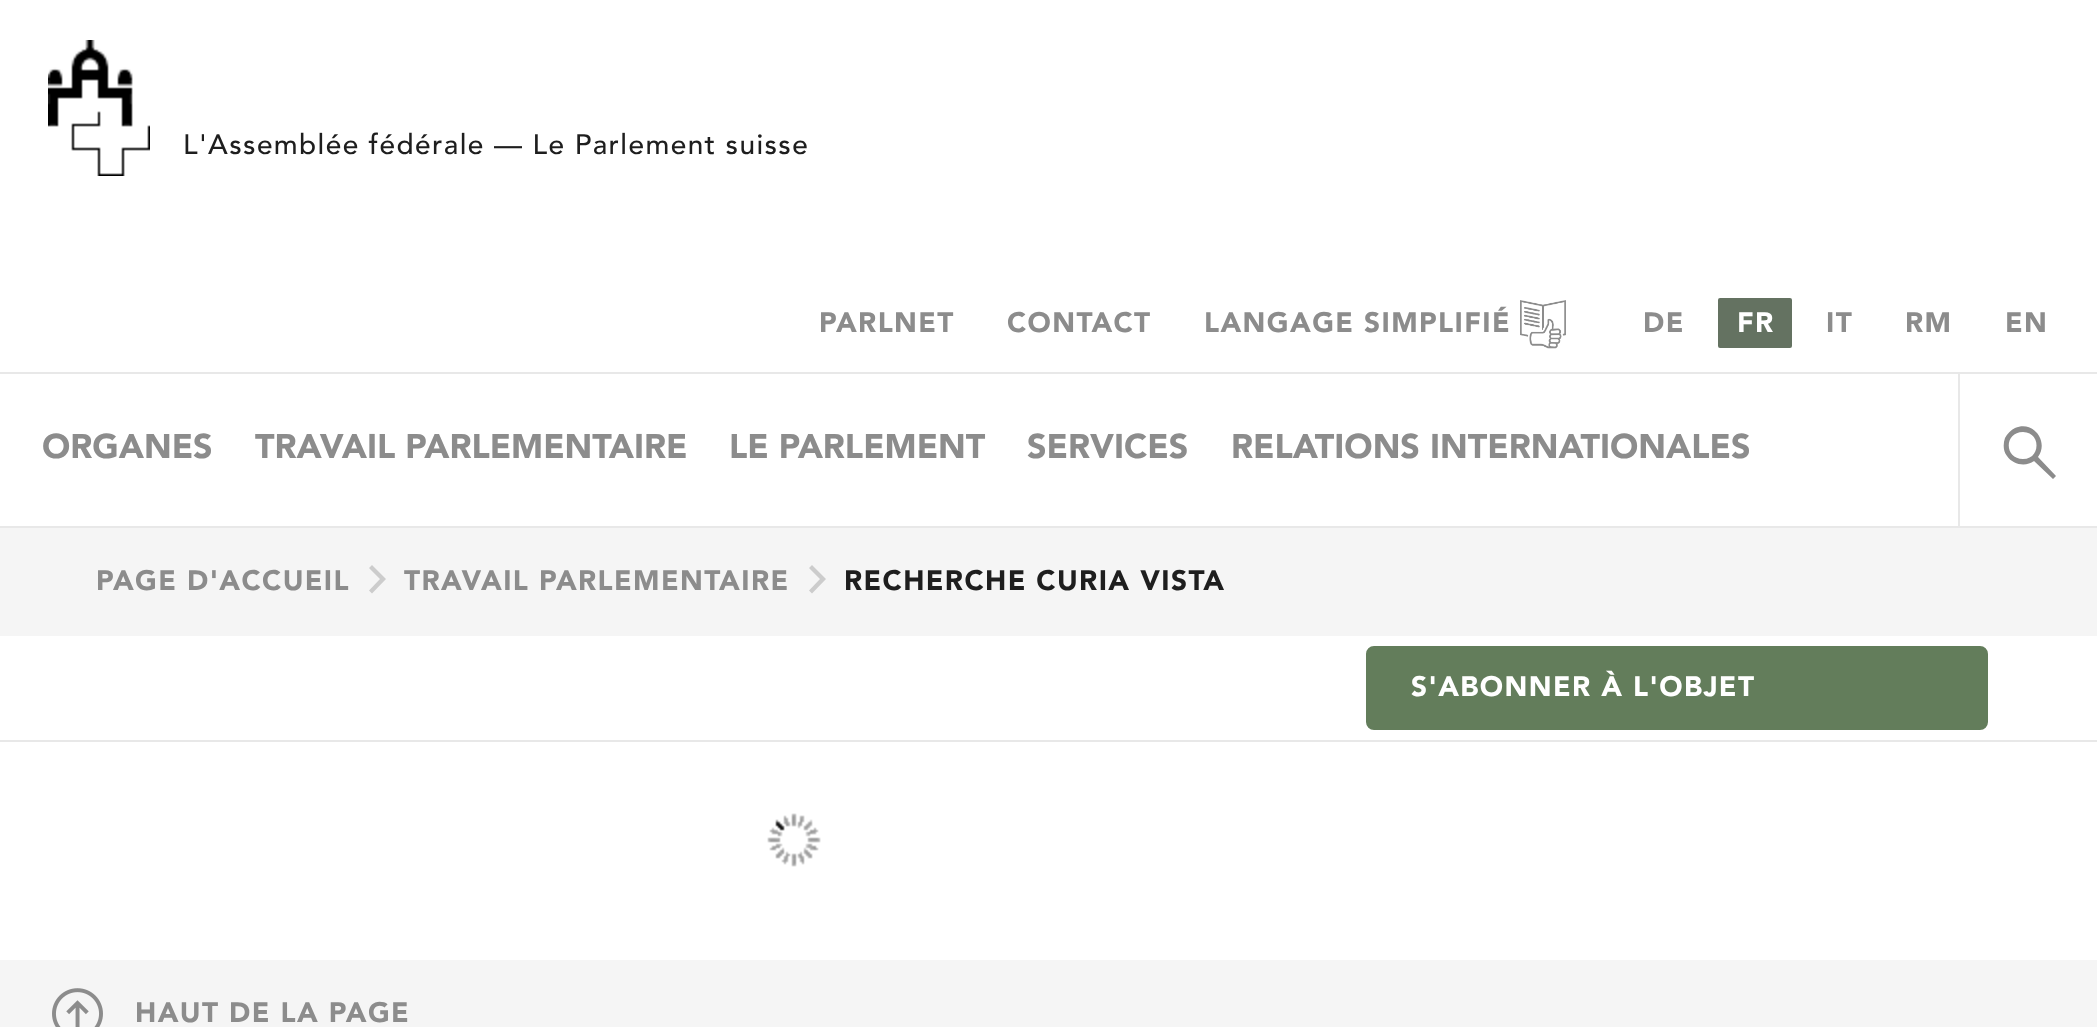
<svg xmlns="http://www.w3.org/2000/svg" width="2097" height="1027">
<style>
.a{font:500 28px Avenir;letter-spacing:1.4px;fill:#1e1e1e}
.b{font:900 28px Avenir;letter-spacing:1.4px;fill:#8c8c8c}
.c{font:900 28px Avenir;letter-spacing:1.4px;fill:#fff}
.d{font:900 34px Avenir;fill:#8c8c8c}
.e{font:900 28px Avenir;letter-spacing:1.4px;fill:#1e1e1e}
</style>
<rect width="100%" height="100%" fill="#f5f5f5"/>
<path fill="#fff" d="M0 0h2097v526H0z"/>
<path fill="#e8e8e8" d="M0 526h2097v2H0z"/>
<path fill="#e8e8e8" d="M0 372h2097v2H0z"/>
<image href="1.png" x="48" y="40" width="102" height="136"/>
<image href="2.png" x="1520" y="300" width="46" height="49"/>
<rect fill="#647261" stroke="#fff" stroke-width="2" x="1717" y="297" width="76" height="52" rx="3"/>
<path fill="#e8e8e8" d="M1958 374h2v152H1958z"/>
<path fill="#8c8c8c" d="M2023 459c18 0 18-27 0-27c-19 0-19 27 0 27zm33 17l-3 3l-19-18c-8 6-21 4-27-5c-4-5-4-12-2-18c2-4 6-8 10-10c19-8 34 14 23 29z"/>
<path fill="#ccc" d="M372 593.5l14-14.5l-14-14l-3 3l11 11l-11 11.5z"/>
<path fill="#ccc" d="M812 593.5l14-14.5l-14-14l-3 3l11 11l-11 11.5z"/>
<path fill="#fff" d="M0 636h2097v104H0z"/>
<path fill="#e8e8e8" d="M0 740h2097v2H0z"/>
<rect fill="#637d5b" stroke="#637d5b" stroke-width="2" x="1367" y="647" width="620" height="82" rx="7"/>
<path fill="#fff" d="M0 742h2097v218H0z"/>
<image href="3.png" x="767" y="813" width="54" height="54"/>
<image href="4.png" x="52" y="988" width="51" height="39"/>
<text class="a" x="183" y="154">L'Assemblée fédérale — Le Parlement suisse</text>
<text class="b" x="819" y="332">PARLNET</text>
<text class="b" x="1007" y="332">CONTACT</text>
<text class="b" x="1204" y="332">LANGAGE SIMPLIFIÉ</text>
<text class="b" x="1643" y="332">DE</text>
<text class="c" x="1737" y="332">FR</text>
<text class="b" x="1826" y="332">IT</text>
<text class="b" x="1905" y="332">RM</text>
<text class="b" x="2005" y="332">EN</text>
<text class="d" x="42" y="458">ORGANES</text>
<text class="d" x="255" y="458">TRAVAIL PARLEMENTAIRE</text>
<text class="d" x="729" y="458">LE PARLEMENT</text>
<text class="d" x="1027" y="458">SERVICES</text>
<text class="d" x="1231" y="458">RELATIONS INTERNATIONALES</text>
<text class="b" x="96" y="590">PAGE D'ACCUEIL</text>
<text class="b" x="404" y="590">TRAVAIL PARLEMENTAIRE</text>
<text class="e" x="844" y="590">RECHERCHE CURIA VISTA</text>
<text class="c" x="1411" y="696">S'ABONNER À L'OBJET</text>
<text class="b" x="135" y="1022">HAUT DE LA PAGE</text>
</svg>
